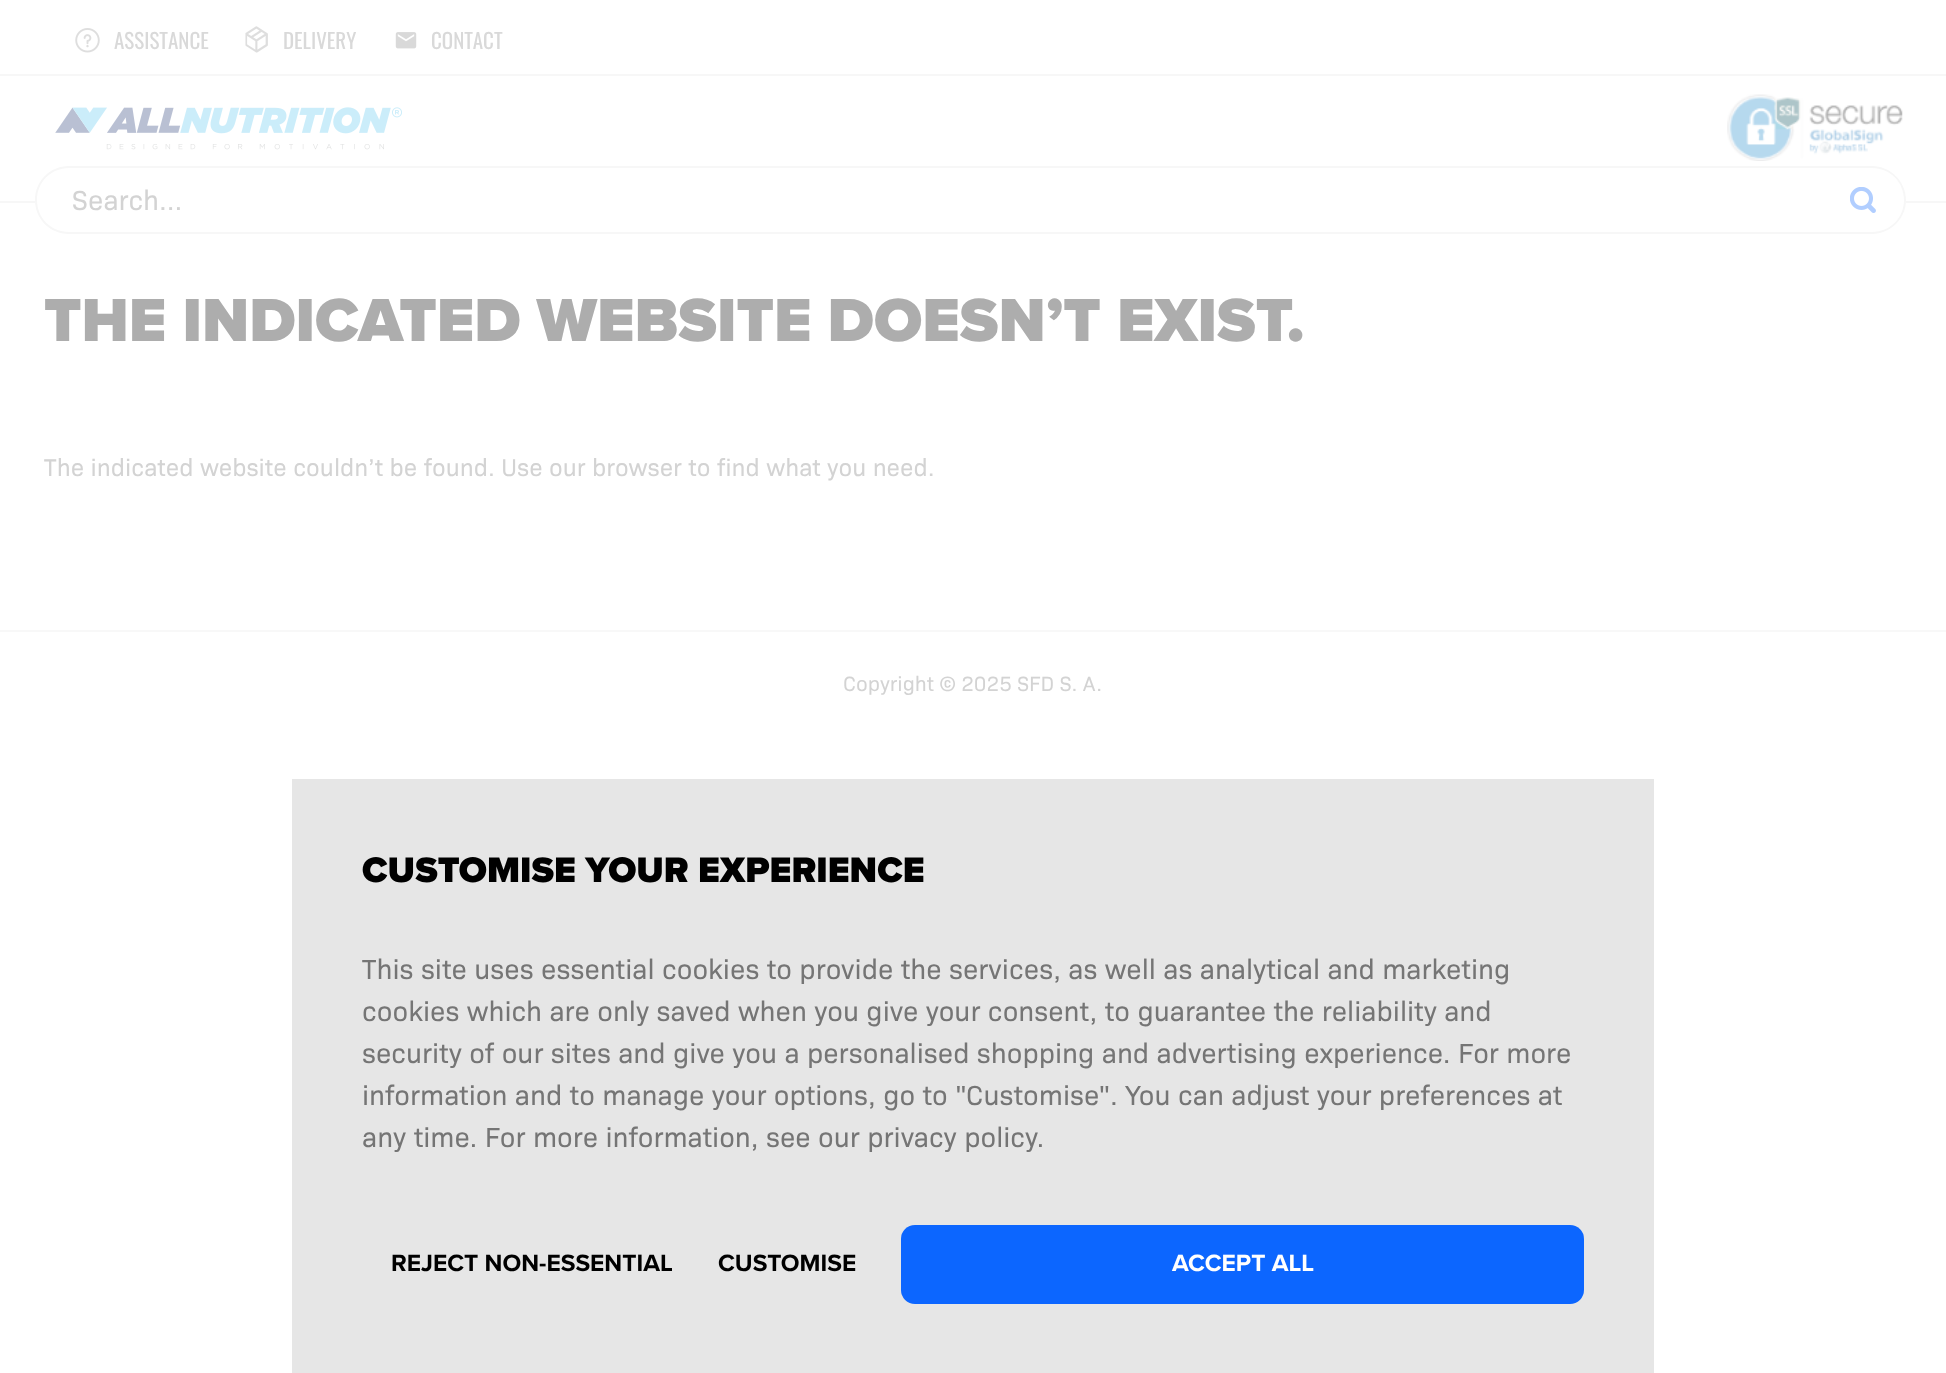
<svg xmlns="http://www.w3.org/2000/svg" width="1946" height="1373">
<style>
.a{font:21px Oswald;fill:#d9d9d9}
.b{font:28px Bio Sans;fill:#d3d3d3}
.c{font:900 63px Proxima Nova;fill:#adadad}
.d{font:24.5px Bio Sans;fill:#d3d3d3}
.e{font:21px Bio Sans;fill:#d3d3d3}
.f{font:900 36.75px Proxima Nova;fill:#000}
.g{font:28px Bio Sans;fill:#757575}
.h{font:bold 24.5px Proxima Nova;fill:#000}
.i{font:bold 24.5px Proxima Nova;fill:#fff}
</style>
<rect width="100%" height="100%" fill="#fff"/>
<path fill="#f7f7f7" d="M0 74h1946v2H0z"/>
<image href="1.png" x="75" y="28" width="25" height="25"/>
<image href="2.png" x="245" y="26" width="23" height="27"/>
<image href="3.png" x="395" y="32" width="22" height="17"/>
<path fill="#f7f7f7" d="M0 201h1946v2H0z"/>
<image href="4.png" x="55" y="107" width="347" height="43"/>
<image href="5.png" x="1727" y="94" width="176" height="67"/>
<path fill="#fff" d="M69.5 166h1771.5v69h-1771.5c-19 0-34.5-15.5-34.5-34.5c0-19 15.5-34.5 34.5-34.5z"/>
<path fill="#f7f7f7" fill-rule="evenodd" d="M69 166h1772v68h-1772c-19 0-34-15-34-34c0-19 15-34 34-34zm0 2h1772v64h-1772c-18 0-32-14-32-32c0-18 14-32 32-32z"/>
<path fill="#fff" d="M1838 166h34c19 0 34 15 34 34v1c0 19-15 34-34 34h-34z"/>
<image href="6.png" x="1850" y="187" width="26" height="26"/>
<path fill="#f7f7f7" fill-rule="evenodd" d="M1838 166h34c18 0 34 15 34 34c0 19-16 34-34 34h-34zm0 2h34c18 0 32 14 32 32c0 18-14 32-32 32h-34z"/>
<path fill="#f8f8f8" d="M0 630h1946v2H0z"/>
<path fill="#e6e6e6" d="M292 779h1362v594H292z"/>
<rect fill="#0c66ff" x="901" y="1225" width="683" height="79" rx="14"/>
<text class="a" x="114" y="49">ASSISTANCE</text>
<text class="a" x="283" y="49">DELIVERY</text>
<text class="a" x="431" y="49">CONTACT</text>
<text class="b" x="72" y="210">Search...</text>
<text class="c" x="44" y="341">THE INDICATED WEBSITE DOESN’T EXIST.</text>
<text class="d" x="44" y="476">The indicated website couldn’t be found. Use our browser to find what you need.</text>
<text class="e" x="843" y="691">Copyright © 2025 SFD S. A.</text>
<text class="f" x="362" y="882">CUSTOMISE YOUR EXPERIENCE</text>
<text class="g" x="362" y="979">This site uses essential cookies to provide the services, as well as analytical and marketing</text>
<text class="g" x="362" y="1021">cookies which are only saved when you give your consent, to guarantee the reliability and</text>
<text class="g" x="362" y="1063">security of our sites and give you a personalised shopping and advertising experience. For more</text>
<text class="g" x="362" y="1105">information and to manage your options, go to "Customise". You can adjust your preferences at</text>
<text class="g" x="362" y="1147">any time. For more information, see our privacy policy.</text>
<text class="h" x="391" y="1271">REJECT NON-ESSENTIAL</text>
<text class="h" x="718" y="1271">CUSTOMISE</text>
<text class="i" x="1172" y="1271">ACCEPT ALL</text>
</svg>
